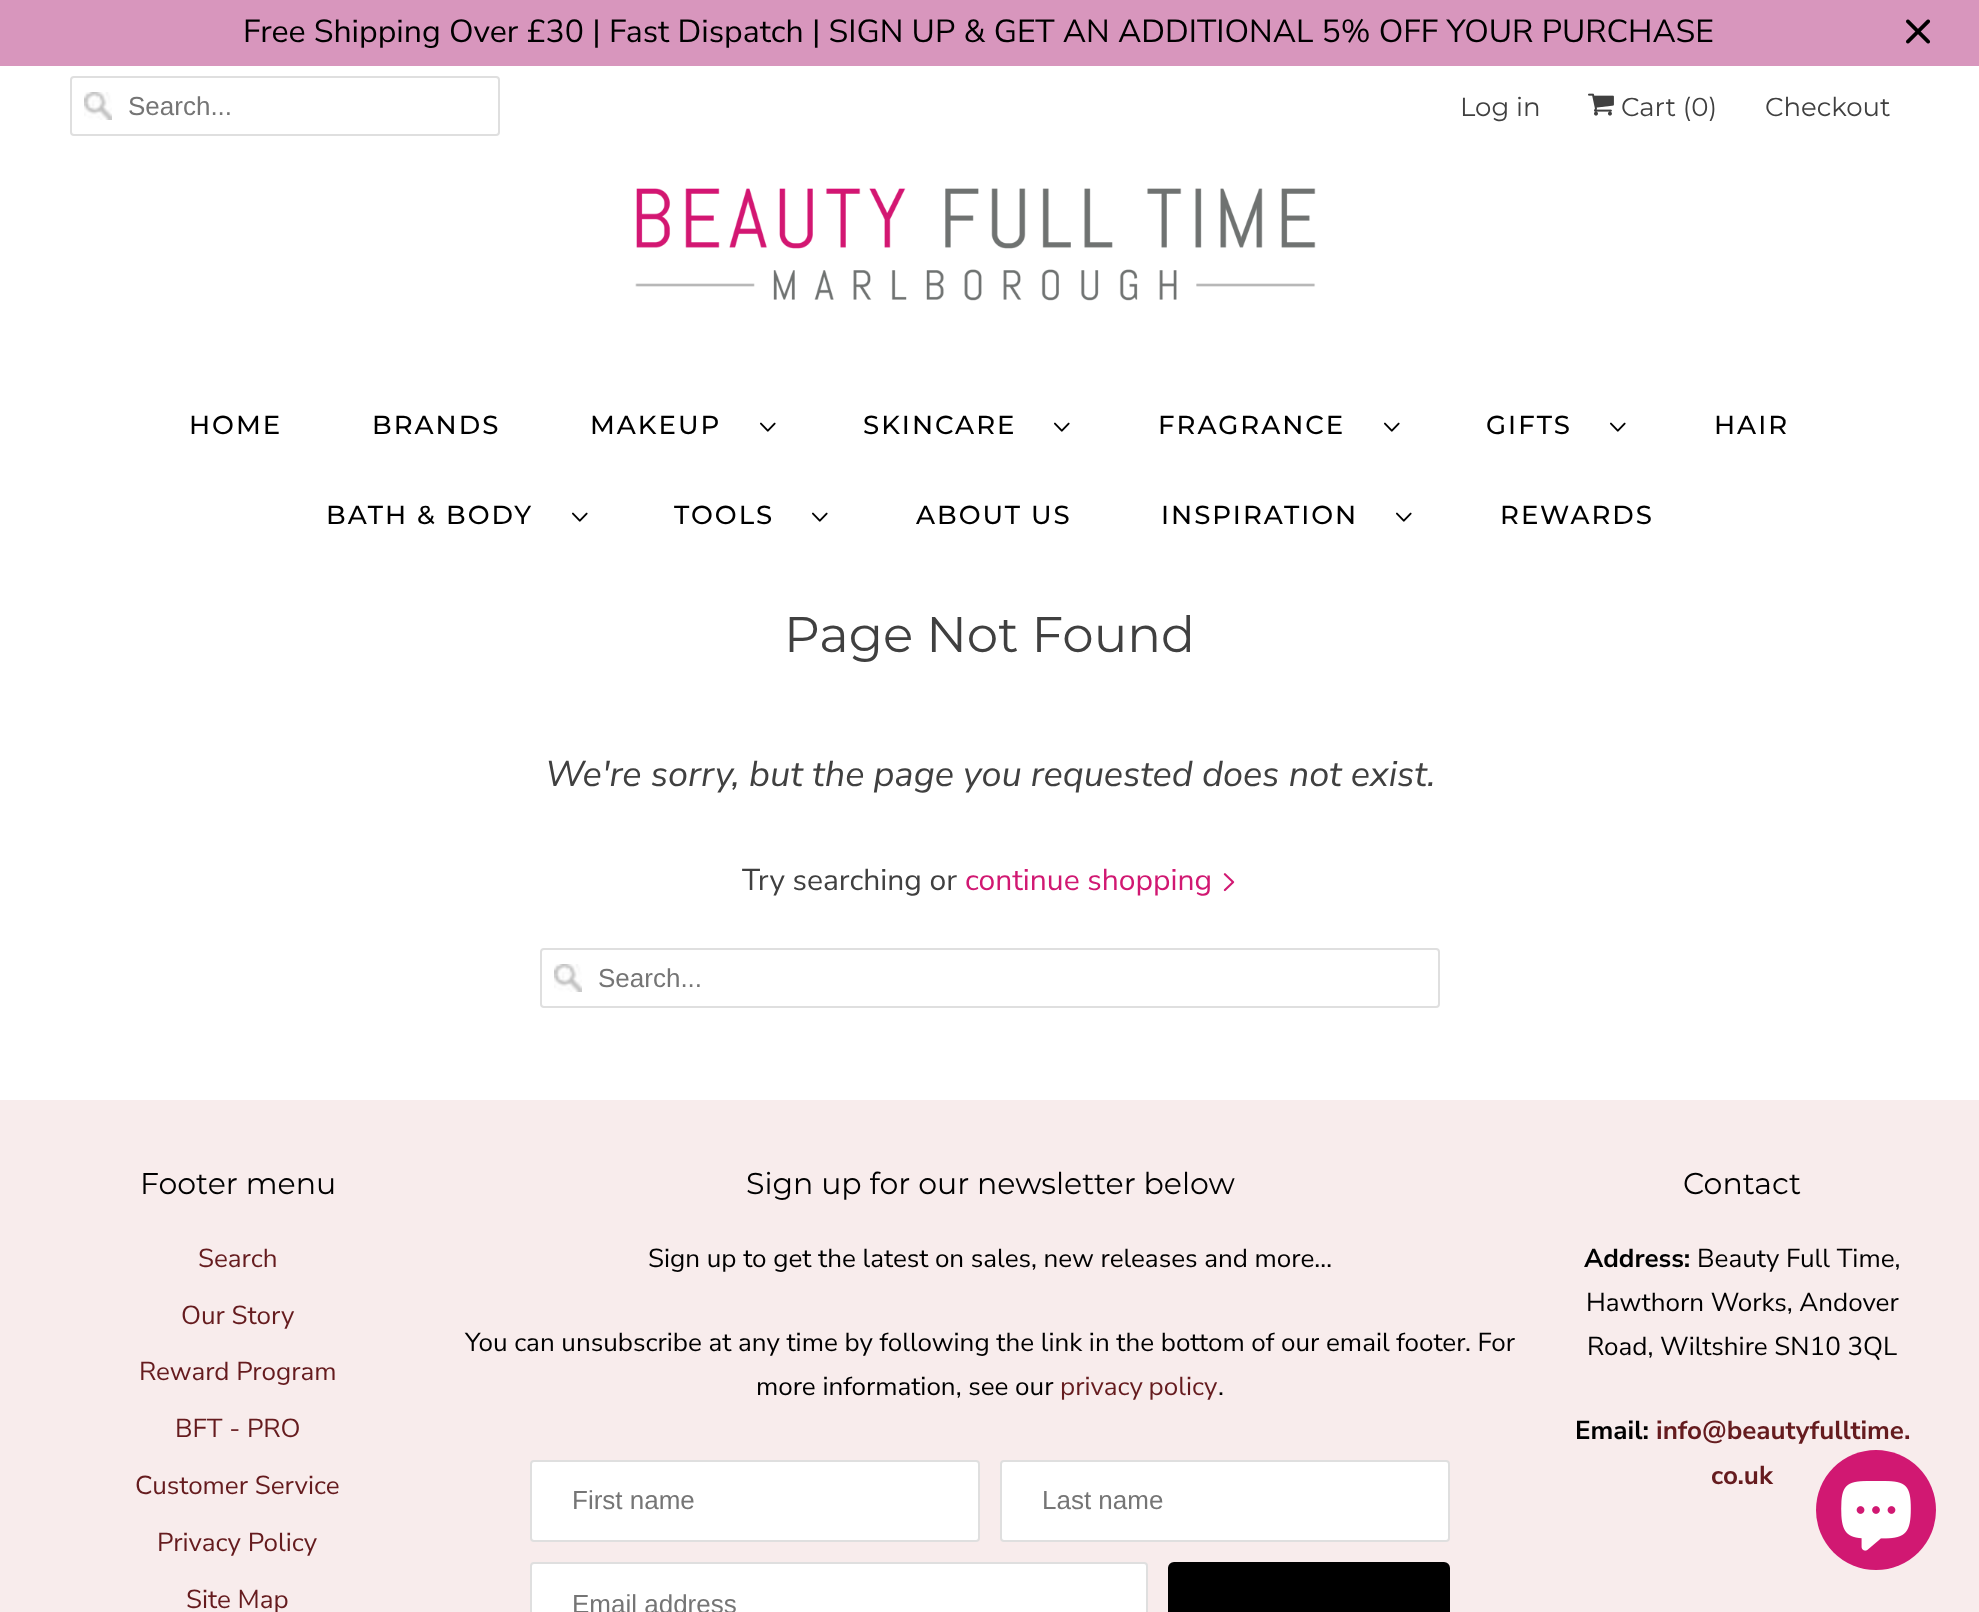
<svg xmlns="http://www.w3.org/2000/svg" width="1979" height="1612">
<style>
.a{font:32px Nunito Sans;fill:#000}
.b{font:26px Liberation Sans;fill:#757575}
.c{font:26px Montserrat;fill:#404040}
.d{font:500 26px Montserrat;letter-spacing:2px;fill:#000}
.e{font:50px Montserrat;fill:#404040}
.f{font:italic 36px Nunito Sans;fill:#404040}
.g{font:30px Nunito Sans;fill:#404040}
.h{font:30px Nunito Sans;fill:#d11872}
.i{font:30px Montserrat;fill:#000}
.j{font:26px Nunito Sans;fill:#651b1e}
.k{font:26px Nunito Sans;fill:#000}
.l{font:bold 26px Nunito Sans;fill:#000}
.m{font:bold 26px Nunito Sans;fill:#651b1e}
</style>
<rect width="100%" height="100%" fill="#fff"/>
<path fill="#d896bd" d="M0 0h1979v66H0z"/>
<image href="1.png" x="1906" y="19" width="25" height="25"/>
<image href="2.png" x="84" y="92" width="28" height="28"/>
<rect fill="none" stroke="#dfdfdf" stroke-width="2" x="71" y="77" width="428" height="58" rx="3"/>
<image href="3.png" x="1588" y="93" width="26" height="23"/>
<image href="4.png" x="635" y="188" width="681" height="113"/>
<image href="5.png" x="760" y="422" width="16" height="10"/>
<image href="5.png" x="1054" y="422" width="16" height="10"/>
<image href="5.png" x="1384" y="422" width="16" height="10"/>
<image href="5.png" x="1610" y="422" width="16" height="10"/>
<image href="5.png" x="572" y="512" width="16" height="10"/>
<image href="5.png" x="812" y="512" width="16" height="10"/>
<image href="5.png" x="1396" y="512" width="16" height="10"/>
<image href="6.png" x="1223" y="873" width="12" height="19"/>
<image href="2.png" x="554" y="964" width="28" height="28"/>
<rect fill="none" stroke="#dfdfdf" stroke-width="2" x="541" y="949" width="898" height="58" rx="3"/>
<path fill="#f8ecec" d="M0 1100h1979v512H0z"/>
<rect fill="#fff" stroke="#dfdfdf" stroke-width="2" x="531" y="1461" width="448" height="80" rx="3"/>
<rect fill="#fff" stroke="#dfdfdf" stroke-width="2" x="1001" y="1461" width="448" height="80" rx="3"/>
<rect fill="#fff" stroke="#dfdfdf" stroke-width="2" x="531" y="1563" width="616" height="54" rx="3"/>
<rect fill="#000" stroke="#000" stroke-width="2" x="1169" y="1563" width="280" height="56" rx="5"/>
<circle fill="#d11872" cx="1876" cy="1510" r="60"/>
<image href="7.png" x="1841" y="1481" width="70" height="70"/>
<text class="a" x="243" y="42">Free Shipping Over £30 | Fast Dispatch | SIGN UP &amp; GET AN ADDITIONAL 5% OFF YOUR PURCHASE</text>
<text class="b" x="128" y="115">Search...</text>
<text class="c" x="1460" y="116">Log in</text>
<text class="c" x="1621" y="116">Cart (0)</text>
<text class="c" x="1765" y="116">Checkout</text>
<text class="d" x="189" y="434">HOME</text>
<text class="d" x="372" y="434">BRANDS</text>
<text class="d" x="590" y="434">MAKEUP</text>
<text class="d" x="863" y="434">SKINCARE</text>
<text class="d" x="1158" y="434">FRAGRANCE</text>
<text class="d" x="1486" y="434">GIFTS</text>
<text class="d" x="1714" y="434">HAIR</text>
<text class="d" x="326" y="524">BATH &amp; BODY</text>
<text class="d" x="674" y="524">TOOLS</text>
<text class="d" x="916" y="524">ABOUT US</text>
<text class="d" x="1161" y="524">INSPIRATION</text>
<text class="d" x="1500" y="524">REWARDS</text>
<text class="e" x="784" y="652">Page Not Found</text>
<text class="f" x="545" y="786">We're sorry, but the page you requested does not exist.</text>
<text class="g" x="742" y="890">Try searching or</text>
<text class="h" x="965" y="890">continue shopping</text>
<text class="b" x="598" y="987">Search...</text>
<text class="i" x="140" y="1194">Footer menu</text>
<text class="j" x="198" y="1267">Search</text>
<text class="j" x="181" y="1324">Our Story</text>
<text class="j" x="139" y="1380">Reward Program</text>
<text class="j" x="175" y="1437">BFT - PRO</text>
<text class="j" x="135" y="1494">Customer Service</text>
<text class="j" x="157" y="1551">Privacy Policy</text>
<text class="j" x="186" y="1608">Site Map</text>
<text class="i" x="746" y="1194">Sign up for our newsletter below</text>
<text class="k" x="648" y="1267">Sign up to get the latest on sales, new releases and more…</text>
<text class="k" x="465" y="1351">You can unsubscribe at any time by following the link in the bottom of our email footer. For</text>
<text class="k" x="756" y="1395">more information, see our</text>
<text class="j" x="1060" y="1395" word-spacing="-1">privacy policy</text>
<text class="k" x="1218" y="1395">.</text>
<text class="b" x="572" y="1509">First name</text>
<text class="b" x="1042" y="1509">Last name</text>
<text class="b" x="572" y="1613">Email address</text>
<text class="i" x="1683" y="1194">Contact</text>
<text class="l" x="1584" y="1267">Address:</text>
<text class="k" x="1697" y="1267">Beauty Full Time,</text>
<text class="k" x="1586" y="1311">Hawthorn Works, Andover</text>
<text class="k" x="1587" y="1355">Road, Wiltshire SN10 3QL</text>
<text class="l" x="1575" y="1439">Email:</text>
<text class="m" x="1656" y="1439">info@beautyfulltime.</text>
<text class="m" x="1711" y="1484">co.uk</text>
</svg>
